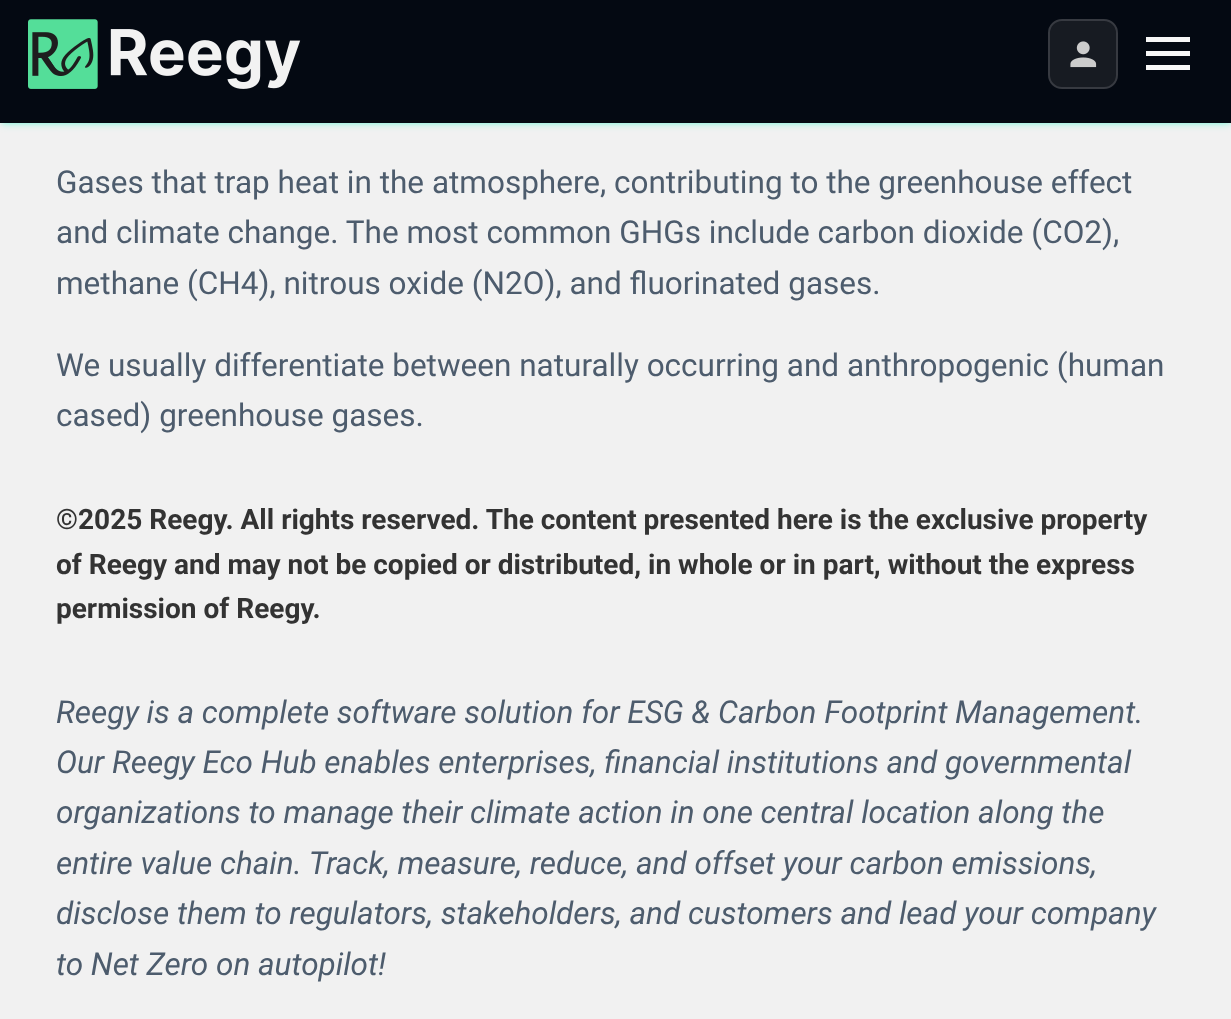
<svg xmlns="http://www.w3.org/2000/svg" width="1231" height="1019">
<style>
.a{font:31.5px Roboto;fill:#4d5c6d}
.b{font:bold 28px Roboto;fill:#333}
.c{font:italic 31.5px Roboto;fill:#4d5c6d}
</style>
<rect width="100%" height="100%" fill="#f1f1f1"/>
<path fill="#00ffc34d" filter="blur(2.5px)" d="M2 4h1228v119H2z"/>
<path fill="#00ffc340" filter="blur(4.5px)" d="M2 5h1228v119H2z"/>
<path fill="#040912" d="M0 0h1231v123H0z"/>
<image href="1.png" x="28" y="19" width="273" height="70"/>
<rect fill="#171b22" stroke="#373a41" stroke-width="2" x="1049" y="20" width="68" height="68" rx="13"/>
<image href="2.png" x="1070" y="41" width="27" height="27"/>
<path fill="#f7f7f7" d="M1146 37h44v5H1146z"/>
<path fill="#f7f7f7" d="M1146 51h44v5H1146z"/>
<path fill="#f7f7f7" d="M1146 65h44v5H1146z"/>
<text class="a" x="56" y="193">Gases that trap heat in the atmosphere, contributing to the greenhouse effect</text>
<text class="a" x="56" y="243">and climate change. The most common GHGs include carbon dioxide (CO2),</text>
<text class="a" x="56" y="294">methane (CH4), nitrous oxide (N2O), and fluorinated gases.</text>
<text class="a" x="56" y="376">We usually differentiate between naturally occurring and anthropogenic (human</text>
<text class="a" x="56" y="426">cased) greenhouse gases.</text>
<text class="b" x="56" y="529">©2025 Reegy. All rights reserved. The content presented here is the exclusive property</text>
<text class="b" x="56" y="574">of Reegy and may not be copied or distributed, in whole or in part, without the express</text>
<text class="b" x="56" y="618">permission of Reegy.</text>
<text class="c" x="56" y="723">Reegy is a complete software solution for ESG &amp; Carbon Footprint Management.</text>
<text class="c" x="56" y="773">Our Reegy Eco Hub enables enterprises, financial institutions and governmental</text>
<text class="c" x="56" y="823">organizations to manage their climate action in one central location along the</text>
<text class="c" x="56" y="874">entire value chain. Track, measure, reduce, and offset your carbon emissions,</text>
<text class="c" x="56" y="924">disclose them to regulators, stakeholders, and customers and lead your company</text>
<text class="c" x="56" y="975">to Net Zero on autopilot!</text>
</svg>
